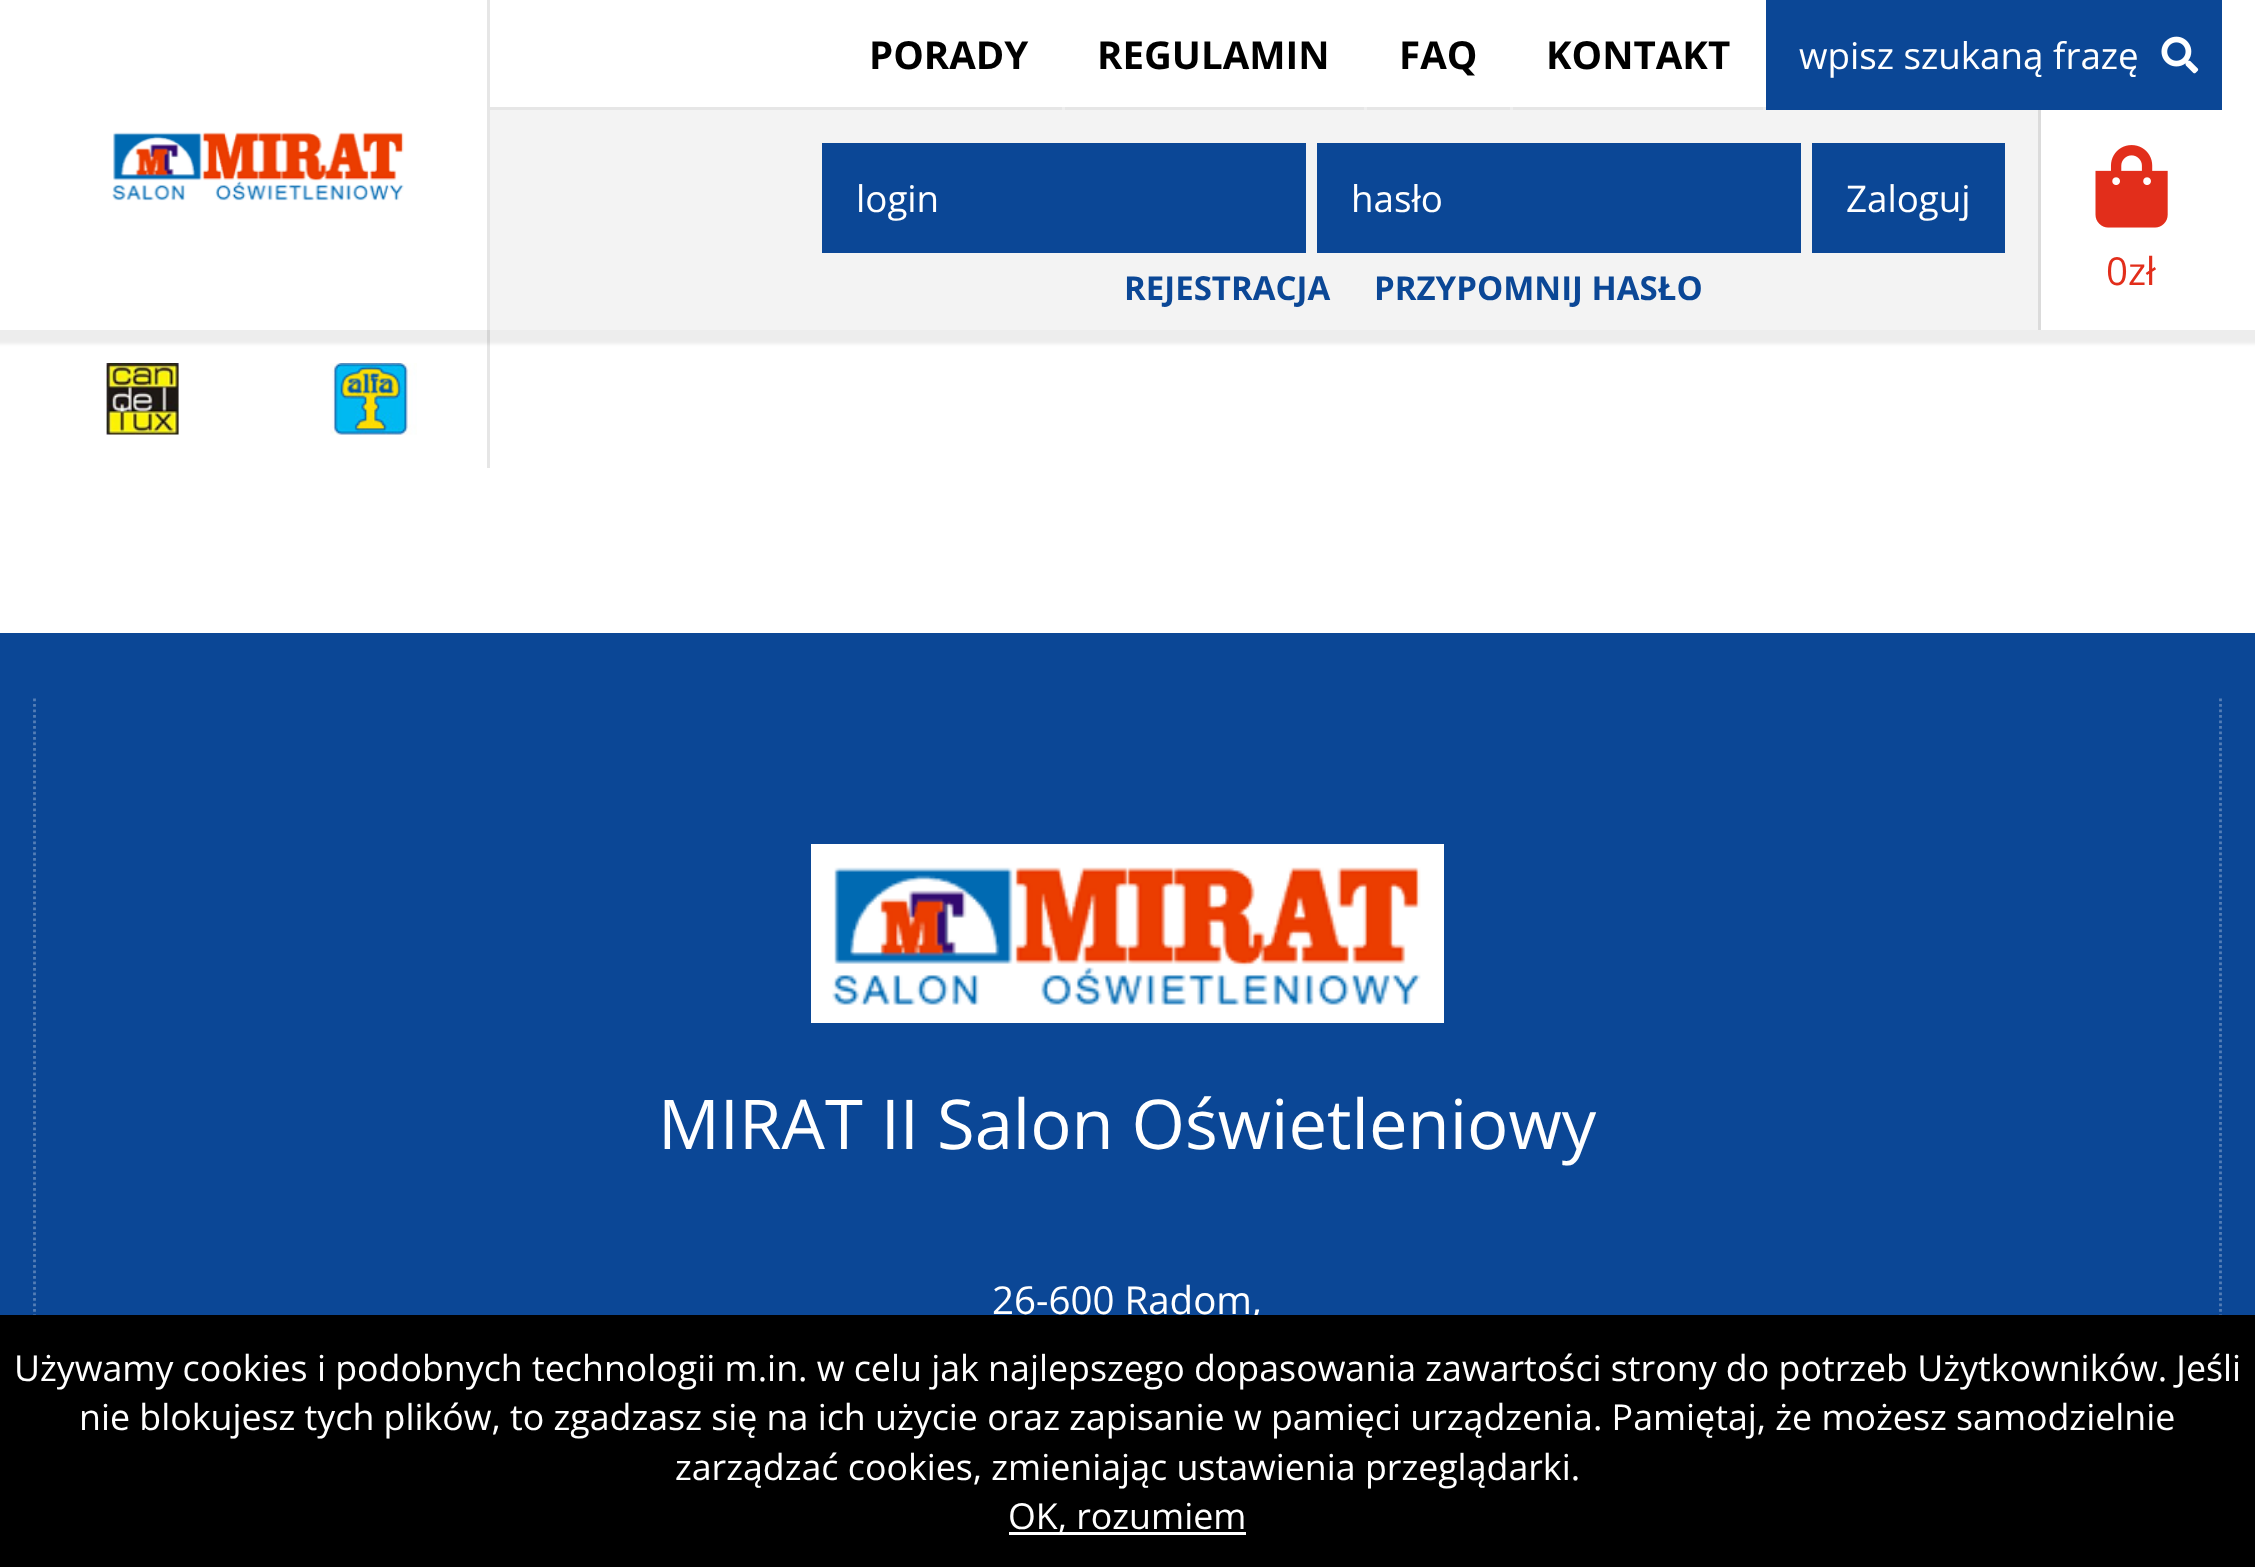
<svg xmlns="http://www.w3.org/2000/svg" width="2255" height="1567">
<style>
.a{font:bold 38.5px Open Sans;fill:#000}
.b{font:36.75px Open Sans;fill:#fff}
.c{font:bold 33px Open Sans;fill:#0b4796}
.d{font:38.5px Open Sans;fill:#e22e1b}
.e{font:68.75px Open Sans;fill:#fff}
.f{font:38.5px Open Sans;fill:#fff}
.g{font:35.75px Open Sans;fill:#fff}
</style>
<rect width="100%" height="100%" fill="#fff"/>
<path fill="#e6e6e6" d="M487 330h3v138H487z"/>
<path fill="#00000012" filter="blur(1.5px)" d="M-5 -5h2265v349H-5z"/>
<path fill="#fff" d="M0 0h2255v330H0z"/>
<path fill="#e6e6e6" d="M487 0h3v330H487z"/>
<image href="1.png" x="112" y="132" width="292" height="69"/>
<path fill="#e6e6e6" d="M490 107h1276v3H490z"/>
<path fill="#eee" d="M1763 107h3v3H1763z"/>
<path fill="#eee" d="M1510 107h3v3H1510z"/>
<path fill="#eee" d="M1364 107h3v3H1364z"/>
<path fill="#eee" d="M1062 107h3v3H1062z"/>
<path fill="#0b4796" d="M1766 0h456v110H1766z"/>
<image href="2.png" x="2161" y="36" width="38" height="38"/>
<path fill="#f3f3f3" d="M490 110h1548v220H490z"/>
<path fill="#dbdbdb" d="M2038 110h3v220H2038z"/>
<path fill="#0b4796" d="M822 143h484v110H822z"/>
<path fill="#0b4796" d="M1317 143h484v110H1317z"/>
<path fill="#0b4796" d="M1812 143h193v110H1812z"/>
<image href="3.png" x="2095" y="145" width="73" height="83"/>
<image href="4.png" x="106" y="363" width="73" height="72"/>
<image href="5.png" x="330" y="363" width="87" height="72"/>
<path fill="#0b4796" d="M0 633h2255v682H0z"/>
<path fill="none" stroke="#547eb6" stroke-width="2.8" stroke-dasharray="2.75 2.75" d="M2220.5 698.5v825"/>
<path fill="none" stroke="#547eb6" stroke-width="2.8" stroke-dasharray="2.75 2.75" d="M34.5 698.5v825"/>
<path fill="none" stroke="#fff" stroke-width="17" d="M819.5 852.5h616v162H819.5z"/>
<image href="6.png" x="828" y="861" width="599" height="145"/>
<text class="a" x="869" y="69">PORADY</text>
<text class="a" x="1097" y="69">REGULAMIN</text>
<text class="a" x="1399" y="69">FAQ</text>
<text class="a" x="1546" y="69">KONTAKT</text>
<text class="b" x="1799" y="69">wpisz szukaną frazę</text>
<text class="b" x="856" y="212">login</text>
<text class="b" x="1351" y="212">hasło</text>
<text class="b" x="1846" y="212">Zaloguj</text>
<text class="c" x="1124" y="300">REJESTRACJA</text>
<text class="c" x="1374" y="300">PRZYPOMNIJ HASŁO</text>
<text class="d" x="2106" y="285">0zł</text>
<text class="e" x="658" y="1149">MIRAT II Salon Oświetleniowy</text>
<text class="f" x="992" y="1314">26-600 Radom,</text>
<path fill="#000" d="M0 1315h2255v252H0z"/>
<text class="g" x="14" y="1381">Używamy cookies i podobnych technologii m.in. w celu jak najlepszego dopasowania zawartości strony do potrzeb Użytkowników. Jeśli</text>
<text class="g" x="79" y="1430">nie blokujesz tych plików, to zgadzasz się na ich użycie oraz zapisanie w pamięci urządzenia. Pamiętaj, że możesz samodzielnie</text>
<text class="g" x="675" y="1480">zarządzać cookies, zmieniając ustawienia przeglądarki.</text>
<path fill="#fff" d="M1009 1532h237v3H1009z"/>
<text class="g" x="1008" y="1529">OK, rozumiem</text>
</svg>
